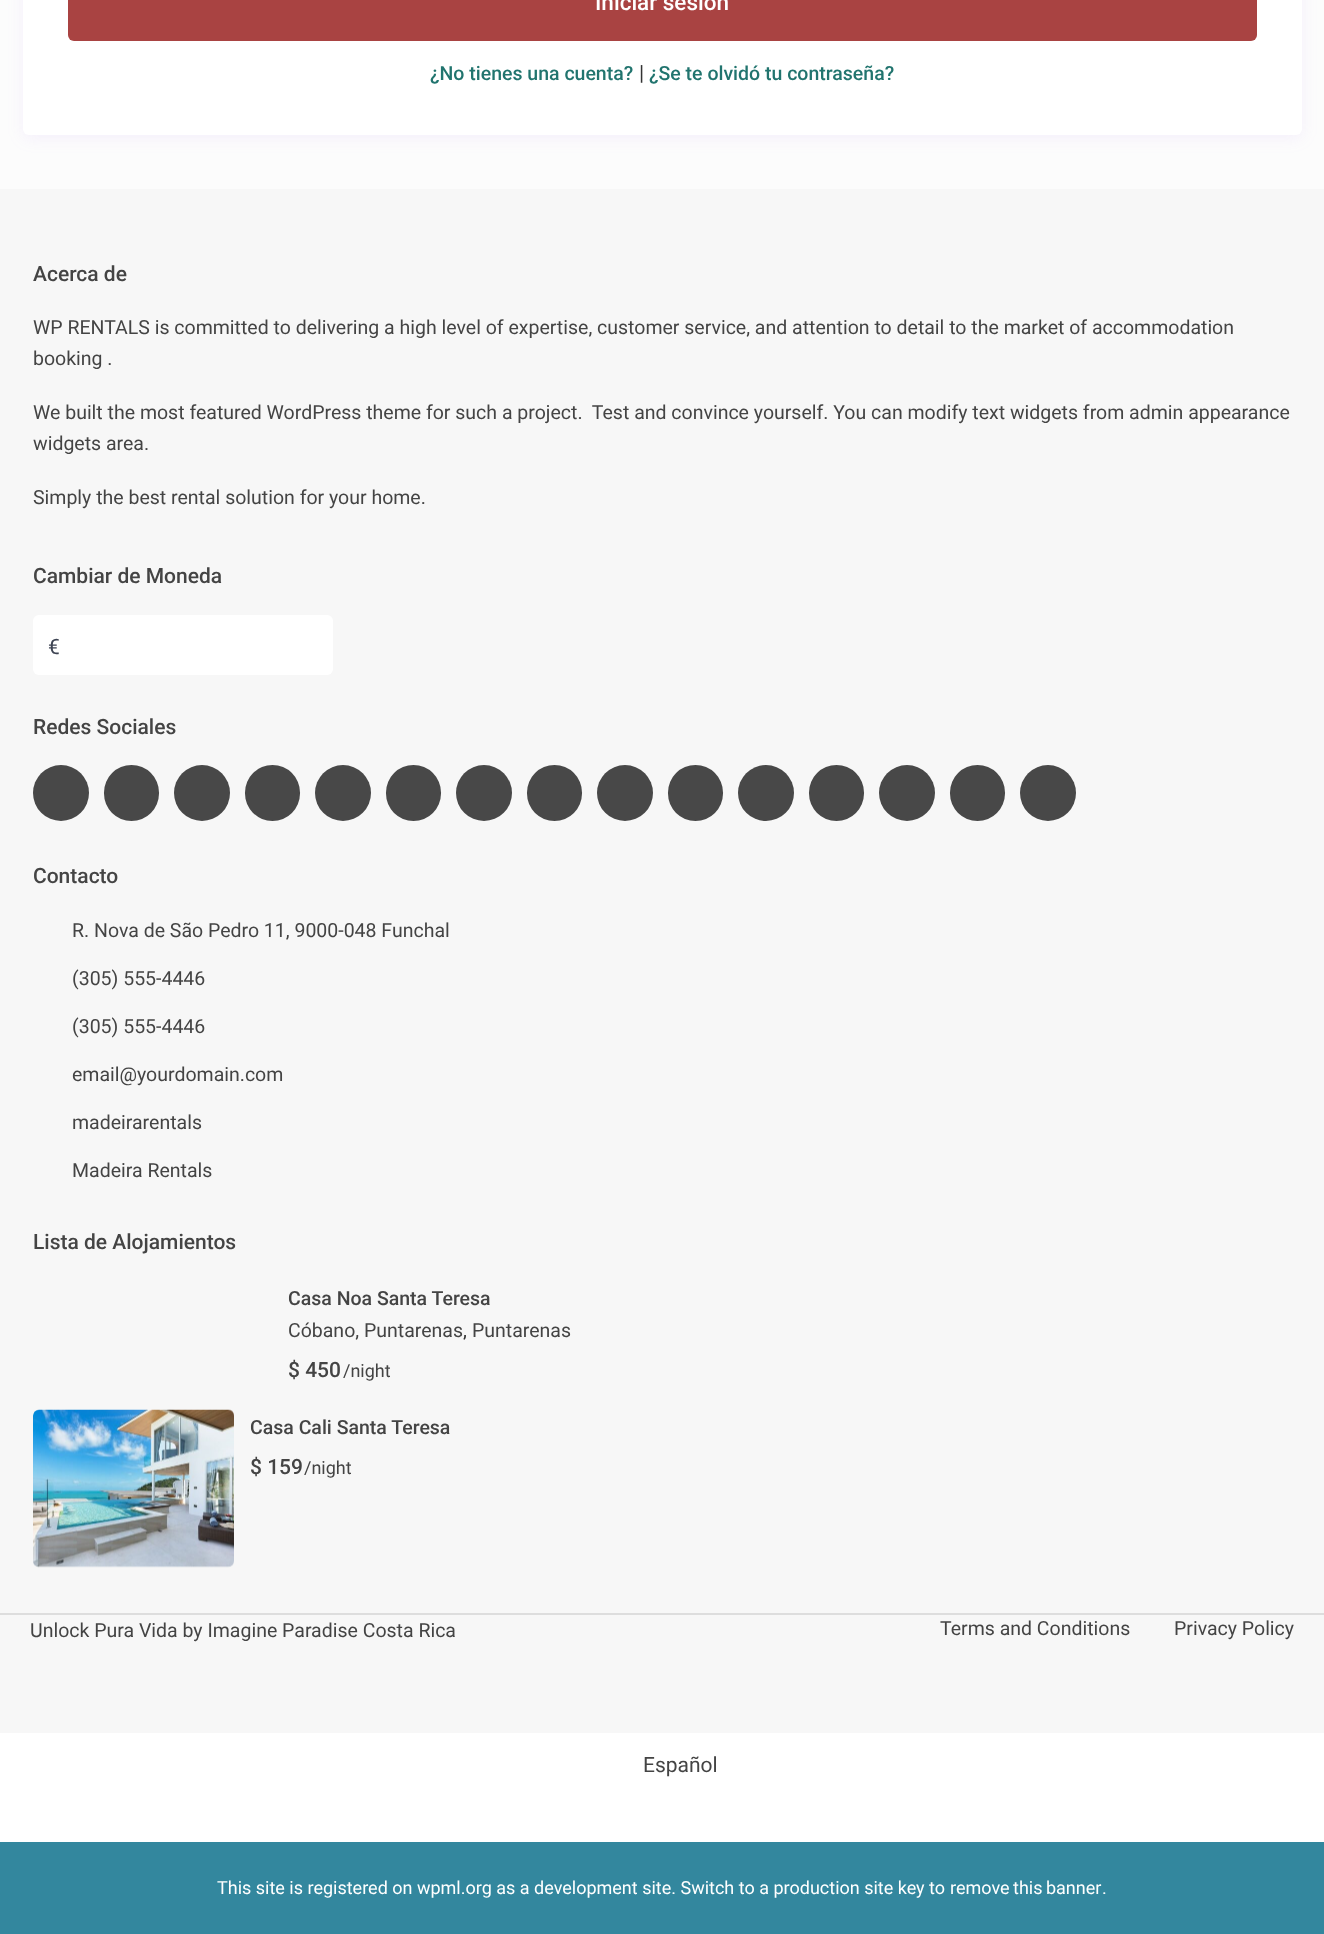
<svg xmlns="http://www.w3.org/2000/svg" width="1324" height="1934">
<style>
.a{font:500 22.5px Roboto;fill:#fff}
.b{font:500 19.5px Roboto;fill:#21746e}
.c{font:21px Roboto;fill:#333}
.d{font:500 21px Roboto;fill:#444}
.e{font:19.5px Roboto;fill:#444}
.f{font:21px Roboto;fill:#3e4453}
.g{font:500 19.5px Roboto;fill:#444}
.h{font:19.5px Roboto;fill:#333}
.i{font:18px Roboto;fill:#444}
.j{font:21px Roboto;fill:#444}
.k{font:18px Roboto;fill:#fff}
</style>
<rect width="100%" height="100%" fill="#fff"/>
<path fill="#fcfcfc" d="M0 0h1324v189H0z"/>
<rect fill="#b57ffa1a" filter="blur(8px)" x="23" y="-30" width="1279" height="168" rx="6"/>
<rect fill="#fff" x="23" y="-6" width="1279" height="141" rx="6"/>
<rect fill="#a94342" x="68" y="-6" width="1189" height="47" rx="6"/>
<path fill="#f7f7f7" d="M0 189h1324v1544H0z"/>
<rect fill="#fff" x="33" y="615" width="300" height="60" rx="6"/>
<circle fill="#484848" cx="61" cy="793" r="28"/>
<rect fill="#484848" x="104" y="765" width="55" height="56" rx="27.5"/>
<circle fill="#484848" cx="202" cy="793" r="28"/>
<rect fill="#484848" x="245" y="765" width="55" height="56" rx="27.5"/>
<circle fill="#484848" cx="343" cy="793" r="28"/>
<rect fill="#484848" x="386" y="765" width="55" height="56" rx="27.5"/>
<circle fill="#484848" cx="484" cy="793" r="28"/>
<rect fill="#484848" x="527" y="765" width="55" height="56" rx="27.5"/>
<circle fill="#484848" cx="625" cy="793" r="28"/>
<rect fill="#484848" x="668" y="765" width="55" height="56" rx="27.5"/>
<circle fill="#484848" cx="766" cy="793" r="28"/>
<rect fill="#484848" x="809" y="765" width="55" height="56" rx="27.5"/>
<circle fill="#484848" cx="907" cy="793" r="28"/>
<rect fill="#484848" x="950" y="765" width="55" height="56" rx="27.5"/>
<circle fill="#484848" cx="1048" cy="793" r="28"/>
<image href="1.png" x="33" y="1409" width="201" height="159"/>
<path fill="#ddd" d="M0 1613h1324v2H0z"/>
<path fill="#33879e" d="M0 1842h1324v92H0z"/>
<text class="a" x="595" y="10">Iniciar sesión</text>
<text class="b" x="430" y="80">¿No tienes una cuenta?</text>
<text class="c" x="639" y="80">|</text>
<text class="b" x="649" y="80">¿Se te olvidó tu contraseña?</text>
<text class="d" x="33" y="281">Acerca de</text>
<text class="e" x="33" y="334">WP RENTALS is committed to delivering a high level of expertise, customer service, and attention to detail to the market of accommodation</text>
<text class="e" x="33" y="365">booking .</text>
<text class="e" xml:space="preserve" x="33" y="419">We built the most featured WordPress theme for such a project.  Test and convince yourself. You can modify text widgets from admin appearance</text>
<text class="e" x="33" y="450">widgets area.</text>
<text class="e" x="33" y="504">Simply the best rental solution for your home.</text>
<text class="d" x="33" y="583">Cambiar de Moneda</text>
<text class="f" x="48" y="654">€</text>
<text class="d" x="33" y="734">Redes Sociales</text>
<text class="d" x="33" y="883">Contacto</text>
<text class="e" x="72" y="937">R. Nova de São Pedro 11, 9000-048 Funchal</text>
<text class="e" x="72" y="985">(305) 555-4446</text>
<text class="e" x="72" y="1033">(305) 555-4446</text>
<text class="e" x="72" y="1081">email@yourdomain.com</text>
<text class="e" x="72" y="1129">madeirarentals</text>
<text class="e" x="72" y="1177">Madeira Rentals</text>
<text class="d" x="33" y="1249">Lista de Alojamientos</text>
<text class="g" x="288" y="1305">Casa Noa Santa Teresa</text>
<text class="e" x="288" y="1337">Cóbano, Puntarenas</text>
<text class="h" x="463" y="1337">,</text>
<text class="e" x="472" y="1337">Puntarenas</text>
<text class="d" x="288" y="1377">$ 450</text>
<text class="i" x="343" y="1377">/night</text>
<text class="g" x="250" y="1434">Casa Cali Santa Teresa</text>
<text class="d" x="250" y="1474">$ 159</text>
<text class="i" x="304" y="1474">/night</text>
<text class="e" x="30" y="1637">Unlock Pura Vida by Imagine Paradise Costa Rica</text>
<text class="e" x="940" y="1635">Terms and Conditions</text>
<text class="e" x="1174" y="1635">Privacy Policy</text>
<text class="j" x="643" y="1772">Español</text>
<text class="k" x="217" y="1894">This site is registered on wpml.org as a development site. Switch to a production site key to</text>
<text class="k" x="950" y="1894" word-spacing="-1">remove this banner</text>
<text class="k" x="1102" y="1894">.</text>
</svg>
